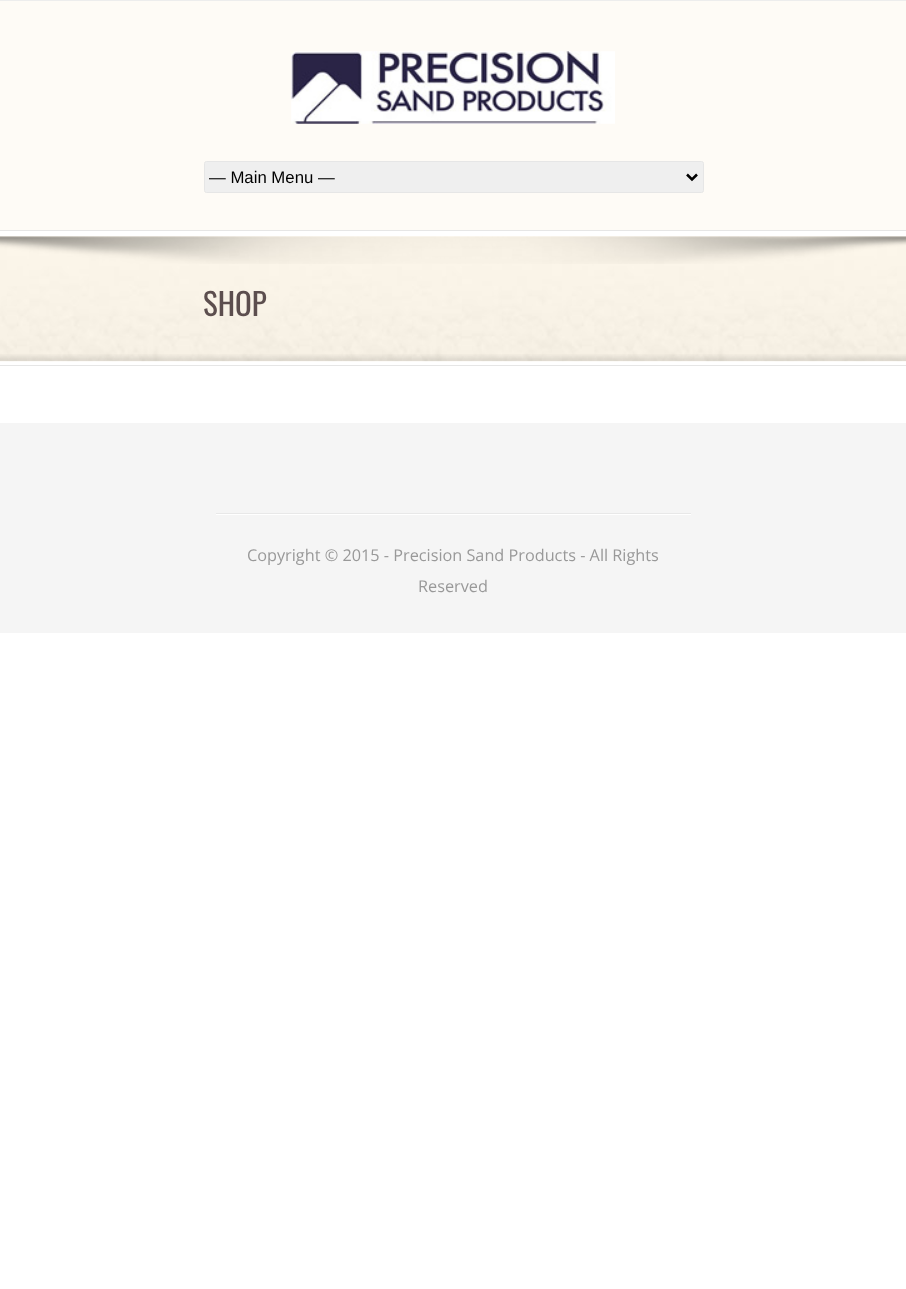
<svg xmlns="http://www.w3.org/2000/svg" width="906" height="1289">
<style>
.a{font:16.75px Liberation Sans;fill:#000}
.b{font:31px Oswald;fill:#5c4e4e}
.c{font:16.25px Open Sans;fill:#999}
</style>
<rect width="100%" height="100%" fill="#fff"/>
<path fill="#ededed" d="M0 0h906v1H0z"/>
<path fill="#fefbf6" d="M0 1h906v229H0z"/>
<image href="1.png" x="291" y="51" width="324" height="73"/>
<rect fill="#efefef" stroke="#e6e6e6" x="204.5" y="161.5" width="499" height="31" rx="2"/>
<path fill="none" stroke="#000" stroke-width="2.5" d="M687 174.5l5 5l5-5"/>
<path fill="#e6e6e6" d="M0 230h906v1H0z"/>
<path fill="#e6e6e6" d="M0 365h906v1H0z"/>
<image href="2.png" x="0" y="236" width="906" height="126"/>
<image href="3.png" x="0" y="236" width="906" height="28"/>
<image href="4.png" x="0" y="354" width="906" height="7"/>
<path fill="#f5f5f5" d="M0 423h906v210H0z"/>
<path fill="#e8e8e8" d="M216 513h475v1H216z"/>
<path fill="#fff" d="M216 514h475v1H216z"/>
<text class="a" x="209" y="183">— Main Menu —</text>
<text class="b" x="203" y="316">SHOP</text>
<text class="c" x="247" y="561">Copyright © 2015 - Precision Sand Products - All Rights</text>
<text class="c" x="418" y="592">Reserved</text>
</svg>
